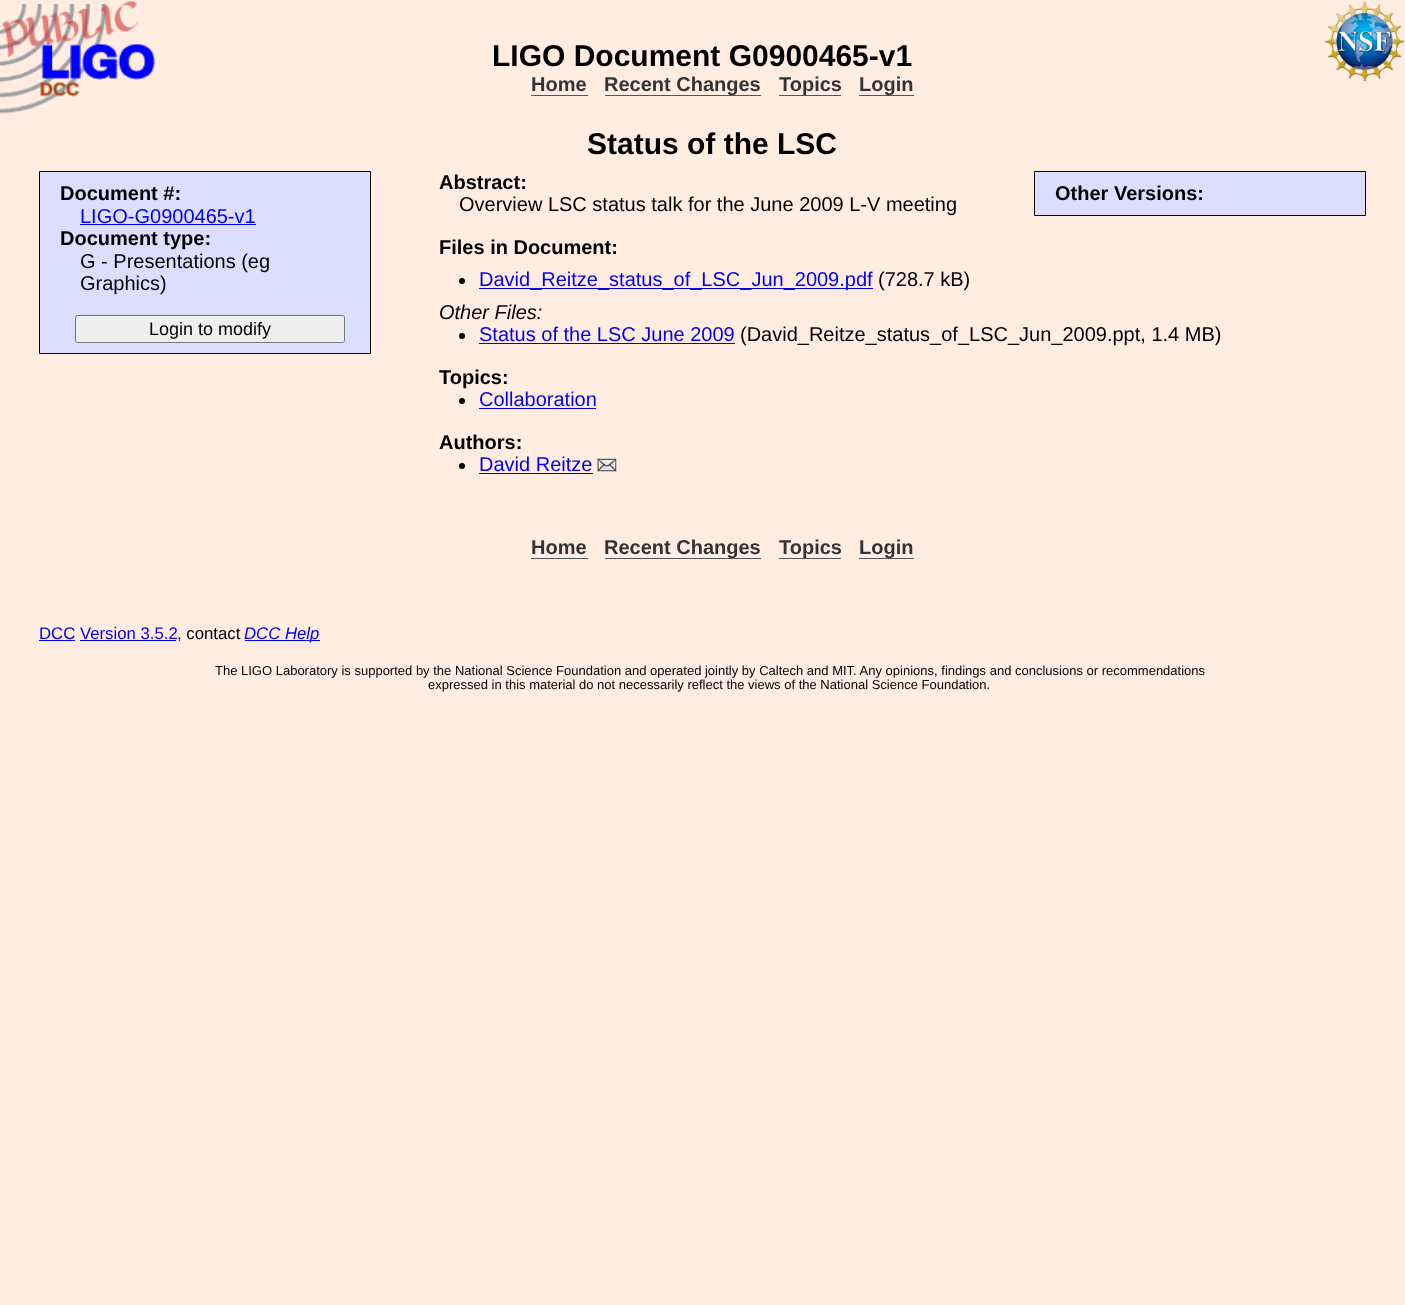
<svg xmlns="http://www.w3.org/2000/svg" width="1405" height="1305">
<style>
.a{font:bold 30px Liberation Sans;fill:#000}
.b{font:bold 20px Liberation Sans;fill:#333}
.c{font:bold 20px Liberation Sans;fill:#000}
.d{font:20px Liberation Sans;fill:#00e}
.e{font:20px Liberation Sans;fill:#000}
.f{font:18px Liberation Sans;fill:#000}
.g{font:italic 20px Liberation Sans;fill:#000}
.h{font:16.75px Liberation Sans;fill:#00e}
.i{font:16.75px Liberation Sans;fill:#000}
.j{font:italic 16.75px Liberation Sans;fill:#00e}
.k{font:13px Liberation Sans;fill:#000}
</style>
<rect width="100%" height="100%" fill="#ffede2"/>
<image href="1.png" x="0" y="1" width="1405" height="113"/>
<path fill="#555" d="M531 95h57v1H531z"/>
<path fill="#555" d="M605 95h156v1H605z"/>
<path fill="#555" d="M779 95h62v1H779z"/>
<path fill="#555" d="M859 95h55v1H859z"/>
<path fill="#ddf" stroke="#000" d="M39.5 171.5h331v182H39.5z"/>
<path fill="#00e" d="M80 224h176v1H80z"/>
<rect fill="#efefef" stroke="#767676" x="75.5" y="315.5" width="269" height="27" rx="2"/>
<path fill="#ddf" stroke="#000" d="M1034.5 171.5h331v44H1034.5z"/>
<circle fill="#000" cx="462" cy="281" r="3"/>
<path fill="#00e" d="M479 288h394v1H479z"/>
<circle fill="#000" cx="462" cy="336" r="3"/>
<path fill="#00e" d="M479 343h256v1H479z"/>
<circle fill="#000" cx="462" cy="401" r="3"/>
<path fill="#00e" d="M479 408h117v1H479z"/>
<circle fill="#000" cx="462" cy="466" r="3"/>
<path fill="#00e" d="M479 473h114v1H479z"/>
<image href="2.png" x="597" y="458" width="20" height="14"/>
<path fill="#555" d="M531 558h57v1H531z"/>
<path fill="#555" d="M605 558h156v1H605z"/>
<path fill="#555" d="M779 558h62v1H779z"/>
<path fill="#555" d="M859 558h55v1H859z"/>
<path fill="#00e" d="M39 640h36v1H39z"/>
<path fill="#00e" d="M80 640h96v1H80z"/>
<path fill="#00e" d="M245 640h75v1H245z"/>
<text class="a" x="492" y="66">LIGO Document G0900465-v1</text>
<text class="b" x="531" y="91">Home</text>
<text class="b" x="604" y="91">Recent Changes</text>
<text class="b" x="779" y="91">Topics</text>
<text class="b" x="859" y="91">Login</text>
<text class="a" x="587" y="154">Status of the LSC</text>
<text class="c" x="60" y="200">Document #:</text>
<text class="d" x="80" y="223">LIGO-G0900465-v1</text>
<text class="c" x="60" y="245">Document type:</text>
<text class="e" x="80" y="268">G - Presentations (eg</text>
<text class="e" x="80" y="290">Graphics)</text>
<text class="f" x="149" y="335">Login to modify</text>
<text class="c" x="439" y="189">Abstract:</text>
<text class="e" x="459" y="211">Overview LSC status talk for the June 2009 L-V meeting</text>
<text class="c" x="1055" y="200">Other Versions:</text>
<text class="c" x="439" y="254">Files in Document:</text>
<text class="d" x="479" y="286">David_Reitze_status_of_LSC_Jun_2009.pdf</text>
<text class="e" x="878" y="286">(728.7 kB)</text>
<text class="g" x="439" y="319">Other Files:</text>
<text class="d" x="479" y="341">Status of the LSC June 2009</text>
<text class="e" x="740" y="341">(David_Reitze_status_of_LSC_Jun_2009.ppt, 1.4 MB)</text>
<text class="c" x="439" y="384">Topics:</text>
<text class="d" x="479" y="406">Collaboration</text>
<text class="c" x="439" y="449">Authors:</text>
<text class="d" x="479" y="471">David Reitze</text>
<text class="b" x="531" y="554">Home</text>
<text class="b" x="604" y="554">Recent Changes</text>
<text class="b" x="779" y="554">Topics</text>
<text class="b" x="859" y="554">Login</text>
<text class="h" x="39" y="639">DCC Version 3.5.2</text>
<text class="i" x="177" y="639">, contact</text>
<text class="j" x="244" y="639">DCC Help</text>
<text class="k" x="215" y="675">The LIGO Laboratory is supported by the National Science Foundation and operated jointly by Caltech and MIT. Any opinions, findings and conclusions or recommendations</text>
<text class="k" x="428" y="689">expressed in this material do not necessarily reflect the views of the National Science Foundation.</text>
</svg>
